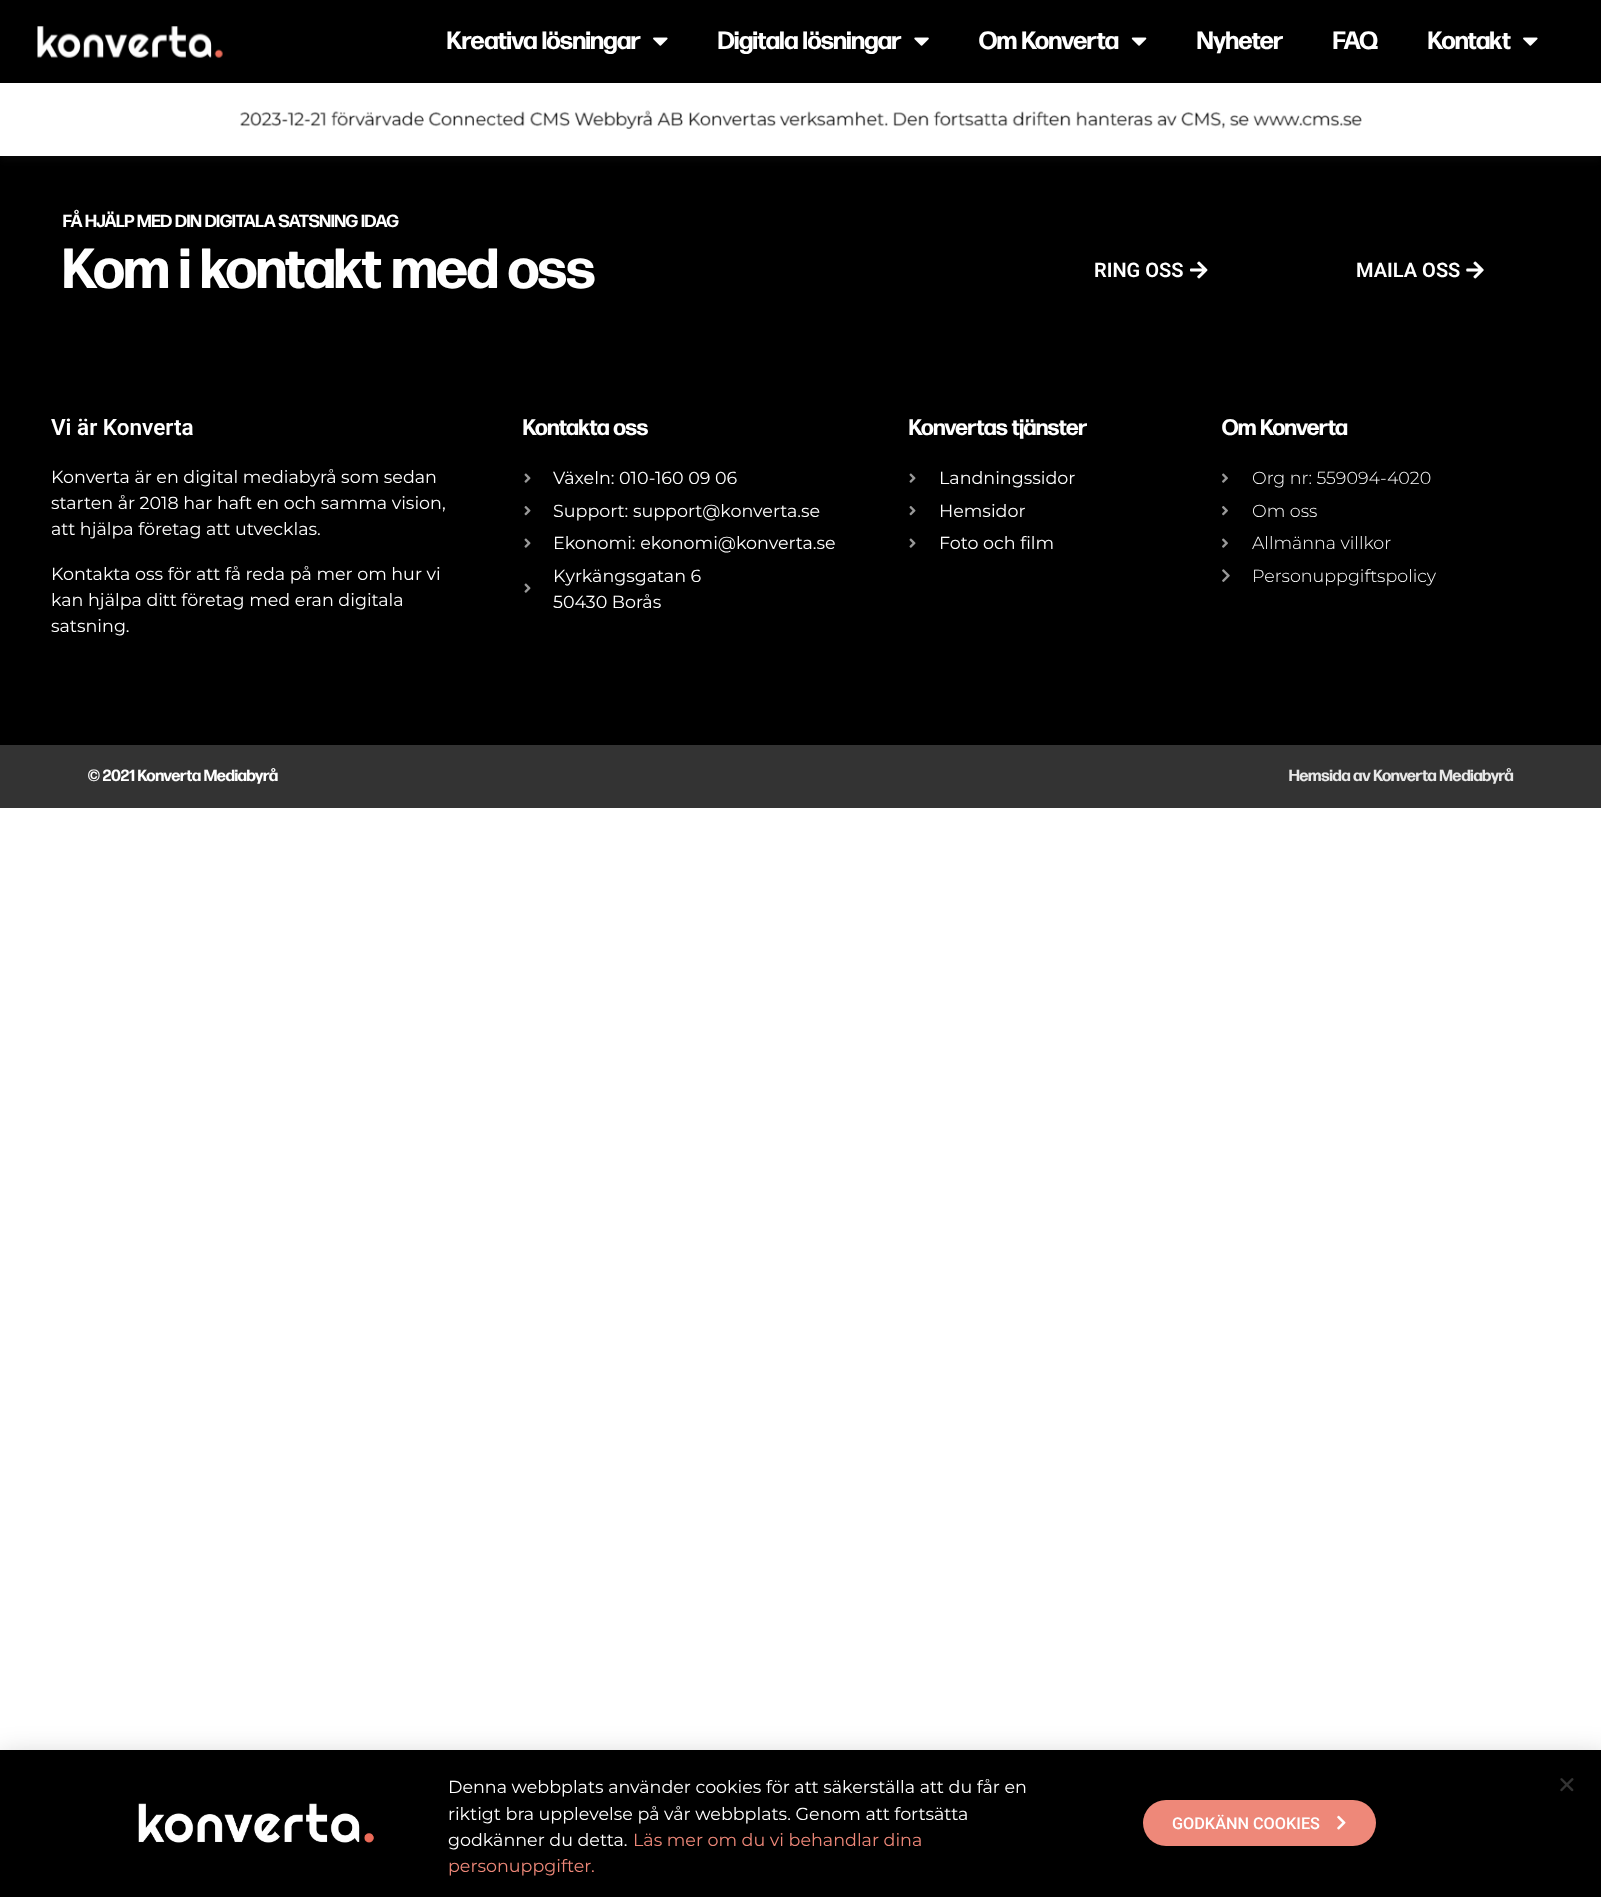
<svg xmlns="http://www.w3.org/2000/svg" width="1601" height="1897">
<style>
.a{font:bold 25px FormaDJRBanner;fill:#fff}
.b{font:bold 17.5px FormaDJRBanner;fill:#fff}
.c{font:bold 56.25px FormaDJRBanner;fill:#fff}
.d{font:600 20px Roboto;fill:#fff}
.e{font:600 22.5px Roboto;fill:#fff}
.f{font:17.5px Montserrat;fill:#fff}
.g{font:bold 22.5px FormaDJRBanner;fill:#fff}
.h{font:300 17.5px Montserrat;fill:#fff}
.i{font:bold 16.25px FormaDJRBanner;fill:#fff}
.j{font:bold 16.25px FormaDJRBanner;fill:#e7e7e7}
.k{font:17.5px Montserrat;fill:#ee8879}
.l{font:500 16.25px Roboto;fill:#fff}
</style>
<rect width="100%" height="100%" fill="#fff"/>
<path fill="#000" d="M0 156h1601v589H0z"/>
<path fill="#6363631a" filter="blur(4px)" d="M0 85h1601v74H0z"/>
<path fill="#000" d="M0 0h1601v83H0z"/>
<image href="1.png" x="37" y="26" width="186" height="32"/>
<image href="2.png" x="653" y="37" width="15" height="9"/>
<image href="3.png" x="914" y="37" width="15" height="9"/>
<image href="4.png" x="1131" y="37" width="16" height="9"/>
<image href="2.png" x="1523" y="37" width="15" height="9"/>
<path fill="#fff" d="M0 83h1601v73H0z"/>
<image href="5.png" x="240" y="110" width="1122" height="20"/>
<image href="6.png" x="1190" y="261" width="18" height="18"/>
<image href="7.png" x="1466" y="261" width="18" height="18"/>
<image href="8.png" x="524" y="473" width="7" height="10"/>
<image href="9.png" x="524" y="506" width="7" height="10"/>
<image href="8.png" x="524" y="538" width="7" height="10"/>
<image href="8.png" x="524" y="583" width="7" height="10"/>
<image href="8.png" x="909" y="473" width="7" height="10"/>
<image href="9.png" x="909" y="506" width="7" height="10"/>
<image href="8.png" x="909" y="538" width="7" height="10"/>
<image href="10.png" x="1222" y="473" width="6" height="10"/>
<image href="11.png" x="1222" y="506" width="6" height="10"/>
<image href="10.png" x="1222" y="538" width="6" height="10"/>
<image href="12.png" x="1222" y="569" width="8" height="13"/>
<path fill="#333" d="M0 745h1601v63H0z"/>
<path fill="#00000033" filter="blur(14.5px)" d="M-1 1756h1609v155H-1z"/>
<path fill="#000" d="M0 1750h1601v147H0z"/>
<image href="13.png" x="138" y="1803" width="236" height="40"/>
<rect fill="#ee8879" x="1143" y="1800" width="233" height="46" rx="23"/>
<image href="14.png" x="1337" y="1815" width="9" height="15"/>
<image href="15.png" x="1560" y="1778" width="14" height="14"/>
<text class="a" x="447" y="49">Kreativa lösningar</text>
<text class="a" x="718" y="49">Digitala lösningar</text>
<text class="a" x="979" y="49">Om Konverta</text>
<text class="a" x="1197" y="49">Nyheter</text>
<text class="a" x="1333" y="49">FAQ</text>
<text class="a" x="1428" y="49">Kontakt</text>
<text class="b" x="63" y="227">FÅ HJÄLP MED DIN DIGITALA SATSNING IDAG</text>
<text class="c" x="63" y="288">Kom i kontakt med oss</text>
<text class="d" x="1094" y="277">RING OSS</text>
<text class="d" x="1356" y="277">MAILA OSS</text>
<text class="e" x="51" y="435">Vi är Konverta</text>
<text class="f" x="51" y="483">Konverta är en digital mediabyrå som sedan</text>
<text class="f" x="51" y="509">starten år 2018 har haft en och samma vision,</text>
<text class="f" x="51" y="535">att hjälpa företag att utvecklas.</text>
<text class="f" x="51" y="580">Kontakta oss för att få reda på mer om hur vi</text>
<text class="f" x="51" y="606">kan hjälpa ditt företag med eran digitala</text>
<text class="f" x="51" y="632">satsning.</text>
<text class="g" x="523" y="435">Kontakta oss</text>
<text class="f" x="553" y="484">Växeln: 010-160 09 06</text>
<text class="f" x="553" y="517">Support: support@konverta.se</text>
<text class="f" x="553" y="549">Ekonomi: ekonomi@konverta.se</text>
<text class="f" x="553" y="582">Kyrkängsgatan 6</text>
<text class="f" x="553" y="608">50430 Borås</text>
<text class="g" x="909" y="435">Konvertas tjänster</text>
<text class="f" x="939" y="484">Landningssidor</text>
<text class="f" x="939" y="517">Hemsidor</text>
<text class="f" x="939" y="549">Foto och film</text>
<text class="g" x="1222" y="435">Om Konverta</text>
<text class="h" x="1252" y="484">Org nr: 559094-4020</text>
<text class="h" x="1252" y="517">Om oss</text>
<text class="h" x="1252" y="549">Allmänna villkor</text>
<text class="h" x="1252" y="582">Personuppgiftspolicy</text>
<text class="i" x="88" y="781">© 2021 Konverta Mediabyrå</text>
<text class="j" x="1289" y="781">Hemsida av Konverta Mediabyrå</text>
<text class="f" x="448" y="1793">Denna webbplats använder cookies för att säkerställa att du får en</text>
<text class="f" x="448" y="1820">riktigt bra upplevelse på vår webbplats. Genom att fortsätta</text>
<text class="f" x="448" y="1846">godkänner du detta.</text>
<text class="k" x="633" y="1846">Läs mer om du vi behandlar dina</text>
<text class="k" x="448" y="1872">personuppgifter.</text>
<text class="l" x="1172" y="1829">GODKÄNN COOKIES</text>
</svg>
